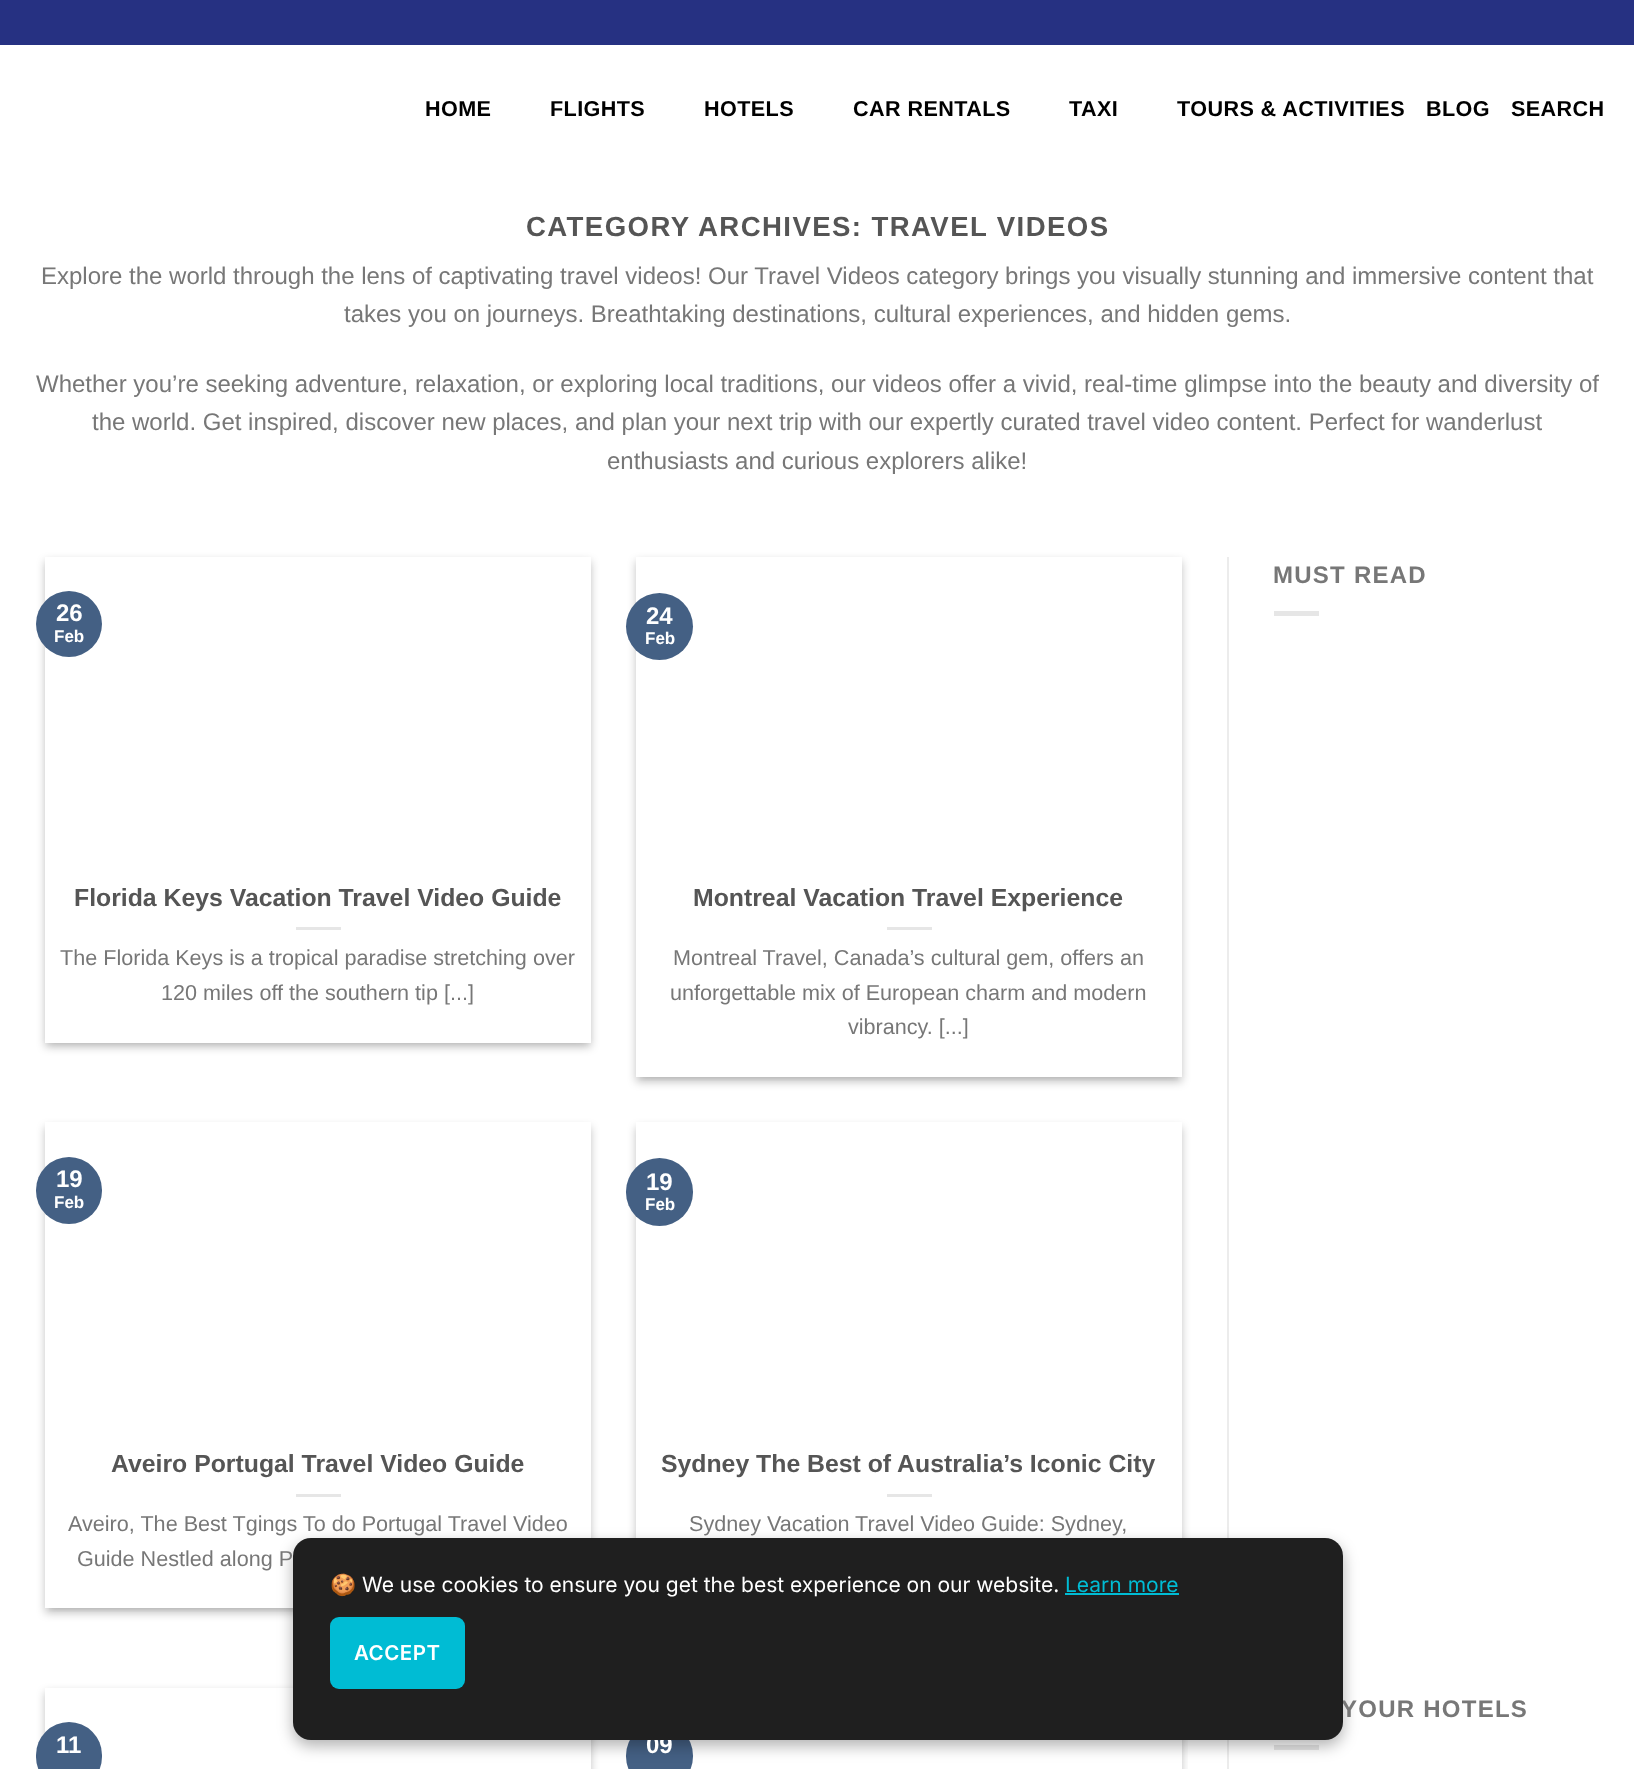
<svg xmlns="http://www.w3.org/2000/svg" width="1634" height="1769">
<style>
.a{font:bold 21.6px Liberation Sans;letter-spacing:0.4px;fill:#000}
.b{font:bold 27.6px Liberation Sans;letter-spacing:1.4px;fill:#555}
.c{font:24px Liberation Sans;fill:#777}
.d{font:bold 24px Liberation Sans;fill:#fff}
.e{font:bold 17px Liberation Sans;fill:#fff}
.f{font:bold 24.8px Liberation Sans;fill:#555}
.g{font:21.6px Liberation Sans;fill:#777}
.h{font:bold 24px Liberation Sans;letter-spacing:1.25px;fill:#777}
.i{font:21px Noto Color Emoji;fill:#fff}
.j{font:21px Inter;fill:#fff}
.k{font:21px Inter;fill:#00bcd4}
.l{font:600 20.5px Inter;letter-spacing:0.5px;fill:#fff}
</style>
<defs>
<clipPath id="clip1"><path d="M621 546h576v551h-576zm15 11h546v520h-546z" clip-rule="evenodd"/></clipPath>
<clipPath id="clip2"><path d="M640 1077h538v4H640z"/></clipPath>
<clipPath id="clip3"><path d="M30 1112h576v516h-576zm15 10h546v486h-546z" clip-rule="evenodd"/></clipPath>
<clipPath id="clip4"><path d="M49 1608h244v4H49z"/></clipPath>
<clipPath id="clip5"><path d="M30 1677h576v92h-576zm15 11h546v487h-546z" clip-rule="evenodd"/></clipPath>
<clipPath id="clip6"><path d="M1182 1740h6v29H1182z"/></clipPath>
</defs>
<rect width="100%" height="100%" fill="#fff"/>
<path fill="#263182" d="M0 0h1634v45H0z"/>
<path fill="#0000003b" filter="blur(4.5px)" d="M45 561h546v486H45z"/>
<path fill="#00000029" filter="blur(4.5px)" d="M51 567h534v474H51z"/>
<path fill="#fff" d="M45 557h546v486H45z"/>
<circle fill="#446084" cx="69" cy="624" r="33"/>
<path fill="#e6e6e6" d="M296 927h45v3H296z"/>
<g clip-path="url(#clip1)">
<path fill="#0000003b" filter="blur(4.5px)" d="M636 561h546v521H636z"/>
</g>
<g clip-path="url(#clip2)">
<path fill="#00000029" filter="blur(4.5px)" d="M642 567h534v509H642z"/>
</g>
<circle fill="#446084" cx="659.5" cy="626.5" r="33.5"/>
<path fill="#e6e6e6" d="M887 927h45v3H887z"/>
<g clip-path="url(#clip3)">
<path fill="#0000003b" filter="blur(4.5px)" d="M45 1127h546v486H45z"/>
</g>
<g clip-path="url(#clip4)">
<path fill="#00000029" filter="blur(4.5px)" d="M51 1133h534v474H51z"/>
</g>
<rect fill="#446084" x="36" y="1157" width="66" height="67" rx="33"/>
<path fill="#e6e6e6" d="M296 1494h45v3H296z"/>
<path fill="#0000003b" filter="blur(4.5px)" d="M636 1127h546v520H636z"/>
<path fill="#fff" d="M636 1122h546v416H636z"/>
<rect fill="#446084" x="626" y="1158" width="67" height="68" rx="33.5"/>
<path fill="#e6e6e6" d="M887 1494h45v3H887z"/>
<g clip-path="url(#clip5)">
<path fill="#0000003b" filter="blur(4.5px)" d="M45 1692h546v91H45z"/>
</g>
<rect fill="#446084" x="36" y="1722" width="66" height="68" rx="33"/>
<g clip-path="url(#clip6)">
<path fill="#0000003b" filter="blur(4.5px)" d="M636 1692h546v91H636z"/>
</g>
<rect fill="#446084" x="626" y="1722" width="67" height="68" rx="33.5"/>
<path fill="#ececec" d="M1227 557h2v1212H1227z"/>
<path fill="#e6e6e6" d="M1274 611h45v5H1274z"/>
<path fill="#e6e6e6" d="M1274 1745h45v5H1274z"/>
<rect fill="#0000004d" filter="blur(7.5px)" x="293" y="1544" width="1050" height="202" rx="18"/>
<text class="a" x="425" y="116">HOME</text>
<text class="a" x="550" y="116">FLIGHTS</text>
<text class="a" x="704" y="116">HOTELS</text>
<text class="a" x="853" y="116">CAR RENTALS</text>
<text class="a" x="1069" y="116">TAXI</text>
<text class="a" x="1177" y="116">TOURS &amp; ACTIVITIES</text>
<text class="a" x="1426" y="116">BLOG</text>
<text class="a" x="1511" y="116">SEARCH</text>
<text class="b" x="526" y="236">CATEGORY ARCHIVES: TRAVEL VIDEOS</text>
<text class="c" x="41" y="284">Explore the world through the lens of captivating travel videos! Our Travel Videos category brings you visually stunning and immersive content that</text>
<text class="c" x="344" y="322">takes you on journeys. Breathtaking destinations, cultural experiences, and hidden gems.</text>
<text class="c" x="36" y="392">Whether you’re seeking adventure, relaxation, or exploring local traditions, our videos offer a vivid, real-time glimpse into the beauty and diversity of</text>
<text class="c" x="92" y="430">the world. Get inspired, discover new places, and plan your next trip with our expertly curated travel video content. Perfect for wanderlust</text>
<text class="c" x="607" y="469">enthusiasts and curious explorers alike!</text>
<text class="d" x="56" y="621">26</text>
<text class="e" x="54" y="642">Feb</text>
<text class="f" x="74" y="906">Florida Keys Vacation Travel Video Guide</text>
<text class="g" x="60" y="965">The Florida Keys is a tropical paradise stretching over</text>
<text class="g" x="161" y="1000">120 miles off the southern tip [...]</text>
<text class="d" x="646" y="624">24</text>
<text class="e" x="645" y="644">Feb</text>
<text class="f" x="693" y="906">Montreal Vacation Travel Experience</text>
<text class="g" x="673" y="965">Montreal Travel, Canada’s cultural gem, offers an</text>
<text class="g" x="670" y="1000">unforgettable mix of European charm and modern</text>
<text class="g" x="848" y="1034">vibrancy. [...]</text>
<text class="d" x="56" y="1187">19</text>
<text class="e" x="54" y="1208">Feb</text>
<text class="f" x="111" y="1472">Aveiro Portugal Travel Video Guide</text>
<text class="g" x="68" y="1531">Aveiro, The Best Tgings To do Portugal Travel Video</text>
<text class="g" x="77" y="1566">Guide Nestled along P</text>
<text class="d" x="646" y="1190">19</text>
<text class="e" x="645" y="1210">Feb</text>
<text class="f" x="661" y="1472">Sydney The Best of Australia’s Iconic City</text>
<text class="g" x="689" y="1531">Sydney Vacation Travel Video Guide: Sydney,</text>
<text class="d" x="56" y="1753">11</text>
<text class="d" x="646" y="1753">09</text>
<text class="h" x="1273" y="583">MUST READ</text>
<text class="h" x="1341" y="1717">YOUR HOTELS</text>
<rect fill="#1f1f1f" x="293" y="1538" width="1050" height="202" rx="18"/>
<text class="i" x="330" y="1592">🍪</text>
<text class="j" x="362" y="1592">We use cookies to ensure you get the best experience on our website.</text>
<text class="k" x="1065" y="1592">Learn more</text>
<path fill="#00bcd4" d="M1065 1593h114v2H1065z"/>
<rect fill="#00bcd4" x="330" y="1617" width="135" height="72" rx="9"/>
<text class="l" x="354" y="1660">ACCEPT</text>
</svg>
